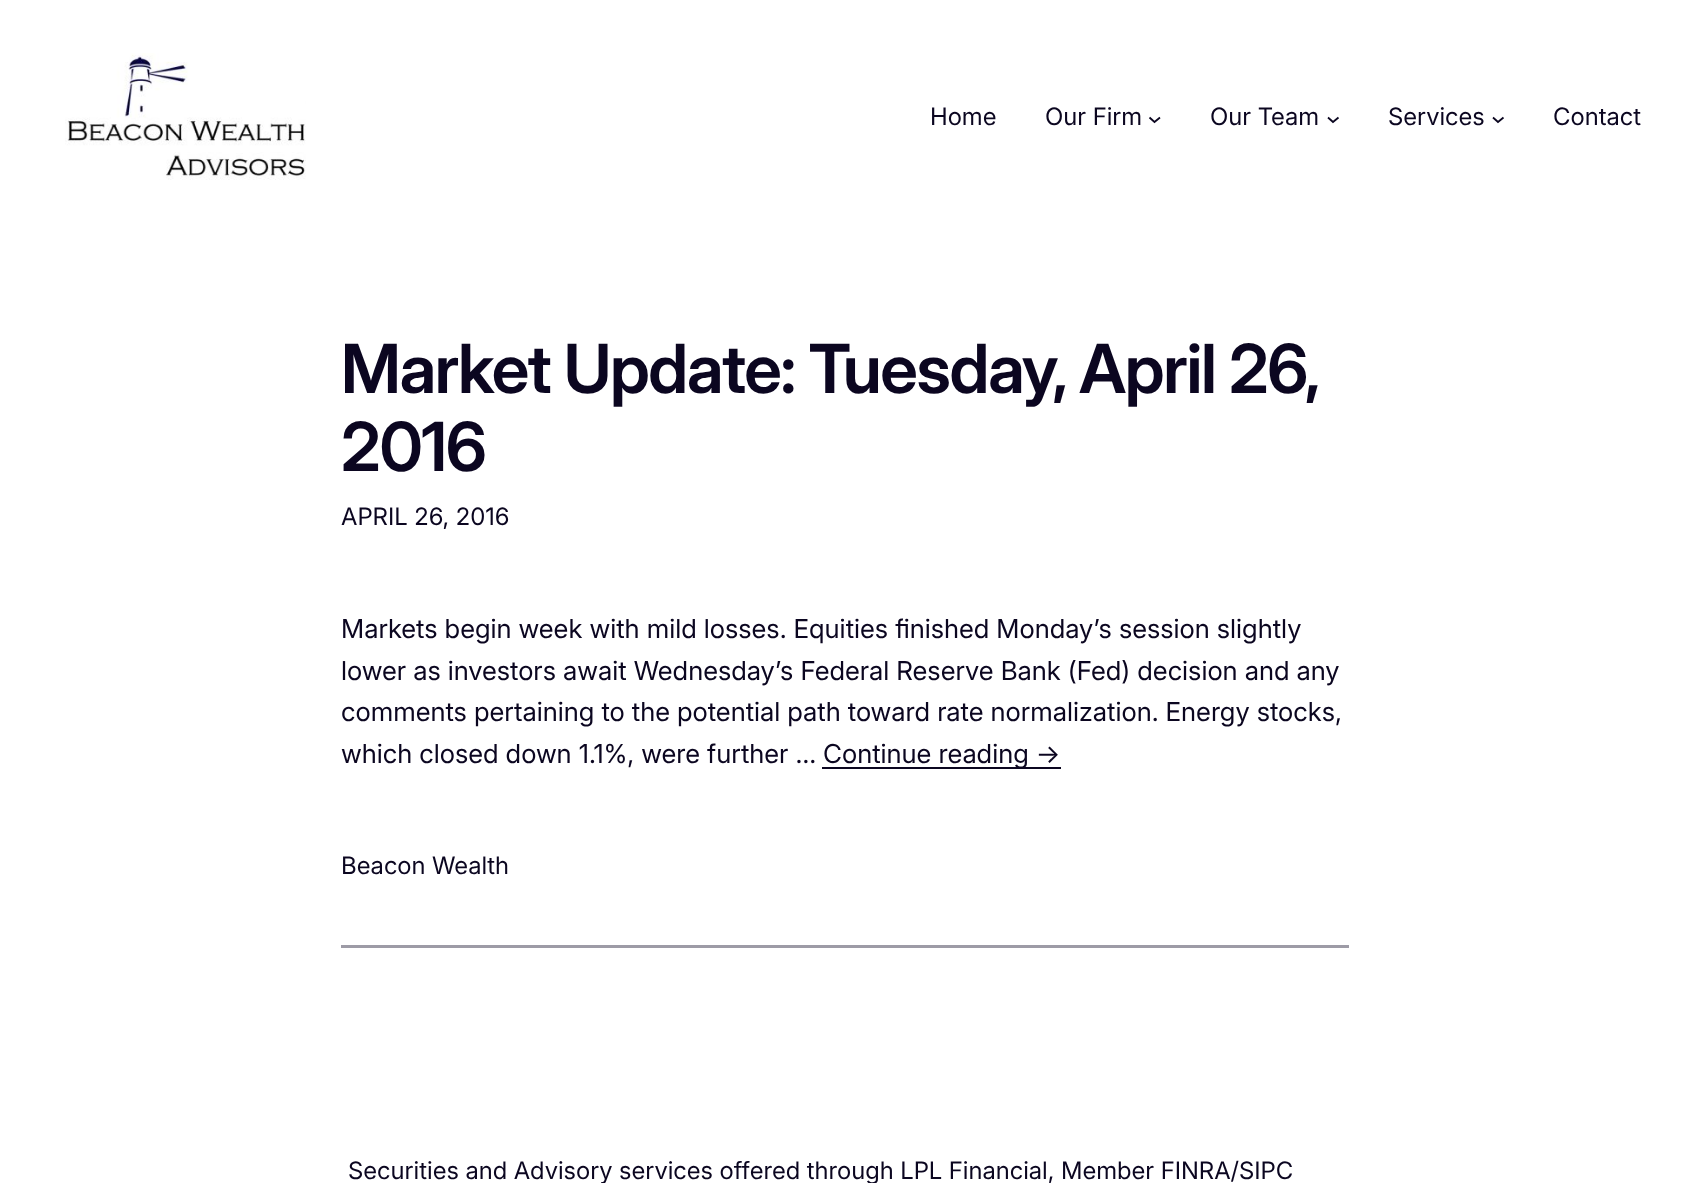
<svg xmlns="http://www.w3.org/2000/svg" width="1688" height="1183">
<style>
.a{font:24px 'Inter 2';fill:#0b0620}
.b{font:600 67.6px Inter;letter-spacing:-1.35px;fill:#0b0620}
.c{font:26.05px Inter;fill:#0b0620}
</style>
<rect width="100%" height="100%" fill="#fff"/>
<image href="1.png" x="65" y="53" width="241" height="127"/>
<path fill="none" stroke="#0b0620" stroke-width="1.8" d="M1149.5 117.5l5 4.5l5.5-4.5"/>
<path fill="none" stroke="#0b0620" stroke-width="1.8" d="M1328 117.5l5 4.5l5.5-4.5"/>
<path fill="none" stroke="#0b0620" stroke-width="1.8" d="M1493 117.5l5 4.5l5.5-4.5"/>
<path fill="#0b0620" d="M822 767h239v2H822z"/>
<path fill="#9d9ba6" d="M341 945h1008v3H341z"/>
<text class="a" x="930" y="125">Home</text>
<text class="a" x="1045" y="125">Our Firm</text>
<text class="a" x="1210" y="125">Our Team</text>
<text class="a" x="1388" y="125">Services</text>
<text class="a" x="1553" y="125">Contact</text>
<text class="b" x="341" y="393" word-spacing="-0.5">Market Update: Tuesday, April 26,</text>
<text class="b" x="341" y="471">2016</text>
<text class="a" x="341" y="525">APRIL 26, 2016</text>
<text class="c" x="341" y="638">Markets begin week with mild losses. Equities finished Monday’s session slightly</text>
<text class="c" x="341" y="680">lower as investors await Wednesday’s Federal Reserve Bank (Fed) decision and any</text>
<text class="c" x="341" y="721">comments pertaining to the potential path toward rate normalization. Energy stocks,</text>
<text class="c" x="341" y="763">which closed down 1.1%, were further …</text>
<text class="c" x="823" y="763">Continue reading →</text>
<text class="a" x="341" y="874">Beacon Wealth</text>
<text class="a" x="348" y="1179">Securities and Advisory services offered through LPL Financial, Member FINRA/SIPC</text>
</svg>
